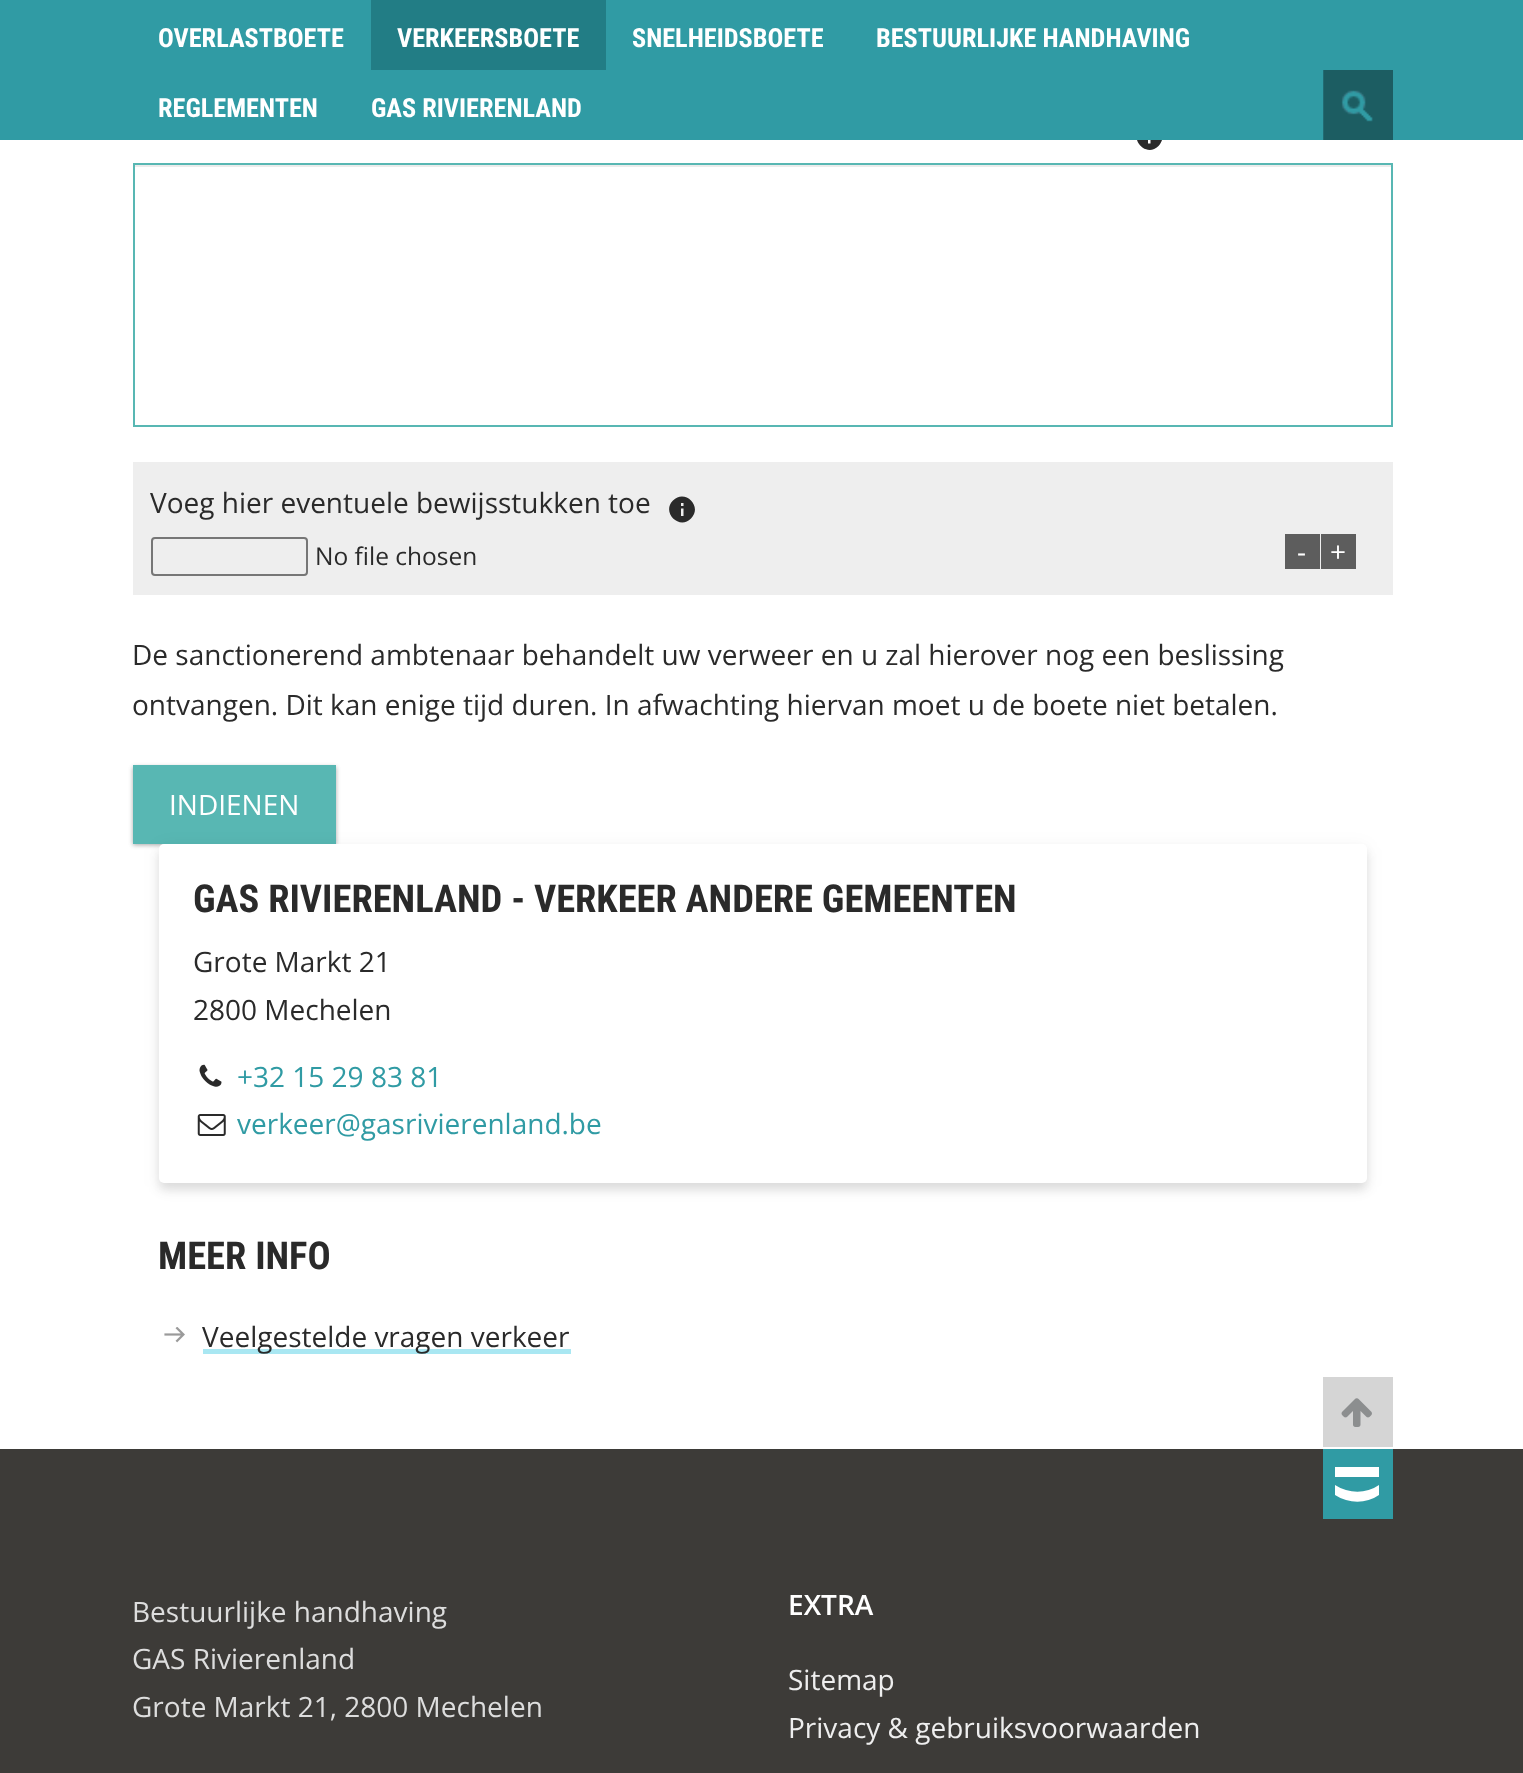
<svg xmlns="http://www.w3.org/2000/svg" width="1523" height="1773">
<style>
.a{font:bold 26.25px Roboto Condensed;fill:#fff}
.b{font:28px Open Sans;fill:#2a2a2a}
.c{font:24.5px Open Sans;fill:#2a2a2a}
.d{font:28px Open Sans;fill:#fff}
.e{font:bold 38.5px Roboto Condensed;fill:#2a2a2a}
.f{font:28px Open Sans;fill:#309ba4}
.g{font:28px Open Sans;fill:#ddd}
.h{font:600 28px Open Sans;fill:#fff}
.i{font:28px Open Sans;fill:#eee}
</style>
<rect width="100%" height="100%" fill="#fff"/>
<path fill="#2a2a2a" d="M1150.5 133v-2.5h-2.5v2.5zm0 10.5v-8h-2.5v8zm-10-15.5c12-12 30 6 18 18c-12 12-30-6.5-18-18z"/>
<path fill="#309ba4" d="M0 0h1523v140H0z"/>
<path fill="#227d85" d="M371 0h235v70H371z"/>
<image href="1.png" x="1323" y="70" width="70" height="70"/>
<path fill="#ececec" d="M135 165h1256v2H135z"/>
<path fill="none" stroke="#58b7b3" stroke-width="2" d="M134 164h1258v262H134z"/>
<path fill="#eee" d="M133 462h1260v133H133z"/>
<path fill="#2a2a2a" d="M683.5 506v-3h-2.5v3zm0 10v-7.5h-2.5v7.5zm-10.5-15.5c12-12 30 6 18 18c-11.5 12-30-6-18-18z"/>
<rect fill="none" stroke="#767676" stroke-width="2" x="152" y="538" width="155" height="37" rx="3"/>
<path fill="#5d5d5d" d="M1285 534h35v35H1285z"/>
<path fill="#5d5d5d" d="M1321 534h35v35H1321z"/>
<path fill="#0000003d" filter="blur(2px)" d="M133 767h203v78H133z"/>
<path fill="#0000001f" filter="blur(2.5px)" d="M133 767h203v78H133z"/>
<path fill="#58b7b3" d="M133 765h203v79H133z"/>
<rect fill="#0000000d" filter="blur(9px)" x="159" y="847" width="1208" height="340" rx="5"/>
<rect fill="#0000001a" filter="blur(5px)" x="159" y="851" width="1208" height="339" rx="5"/>
<rect fill="#fff" x="159" y="844" width="1208" height="339" rx="5"/>
<image href="2.png" x="199" y="1064" width="23" height="23"/>
<image href="3.png" x="197" y="1114" width="29" height="22"/>
<image href="4.png" x="164" y="1327" width="21" height="16"/>
<path fill="#a9e7f2" d="M203 1349h368v5H203z"/>
<path fill="#3d3b38" d="M0 1449h1523v324H0z"/>
<path fill="#d5d5d5" d="M1323 1377h70v70H1323z"/>
<image href="5.png" x="1341" y="1398" width="31" height="29"/>
<path fill="#309ba4" d="M1323 1449h70v70H1323z"/>
<path fill="#fff" d="M1379 1467v10h-44v-10zm-44 18v10c14 9 31 9 44 0v-10c-13 9-30 9-44 0z"/>
<text class="a" x="158" y="47">OVERLASTBOETE</text>
<text class="a" x="397" y="47">VERKEERSBOETE</text>
<text class="a" x="632" y="47">SNELHEIDSBOETE</text>
<text class="a" x="876" y="47">BESTUURLIJKE HANDHAVING</text>
<text class="a" x="158" y="117">REGLEMENTEN</text>
<text class="a" x="371" y="117">GAS RIVIERENLAND</text>
<text class="b" x="150" y="513">Voeg hier eventuele bewijsstukken toe</text>
<text class="c" x="315" y="565">No file chosen</text>
<text class="d" x="1297" y="562">-</text>
<text class="d" x="1330" y="562">+</text>
<text class="b" x="132" y="665">De sanctionerend ambtenaar behandelt uw verweer en u zal hierover nog een beslissing</text>
<text class="b" x="132" y="715">ontvangen. Dit kan enige tijd duren. In afwachting hiervan moet u de boete niet betalen.</text>
<text class="d" x="169" y="815">INDIENEN</text>
<text class="e" x="193" y="912">GAS RIVIERENLAND - VERKEER ANDERE GEMEENTEN</text>
<text class="b" x="193" y="972">Grote Markt 21</text>
<text class="b" x="193" y="1020">2800 Mechelen</text>
<text class="f" x="237" y="1087">+32 15 29 83 81</text>
<text class="f" x="237" y="1134">verkeer@gasrivierenland.be</text>
<text class="e" x="158" y="1269">MEER INFO</text>
<text class="b" x="202" y="1347">Veelgestelde vragen verkeer</text>
<text class="g" x="132" y="1622">Bestuurlijke handhaving</text>
<text class="g" x="132" y="1669">GAS Rivierenland</text>
<text class="g" x="132" y="1717">Grote Markt 21, 2800 Mechelen</text>
<text class="h" x="788" y="1615">EXTRA</text>
<text class="i" x="788" y="1690">Sitemap</text>
<text class="i" x="788" y="1738">Privacy &amp; gebruiksvoorwaarden</text>
</svg>
